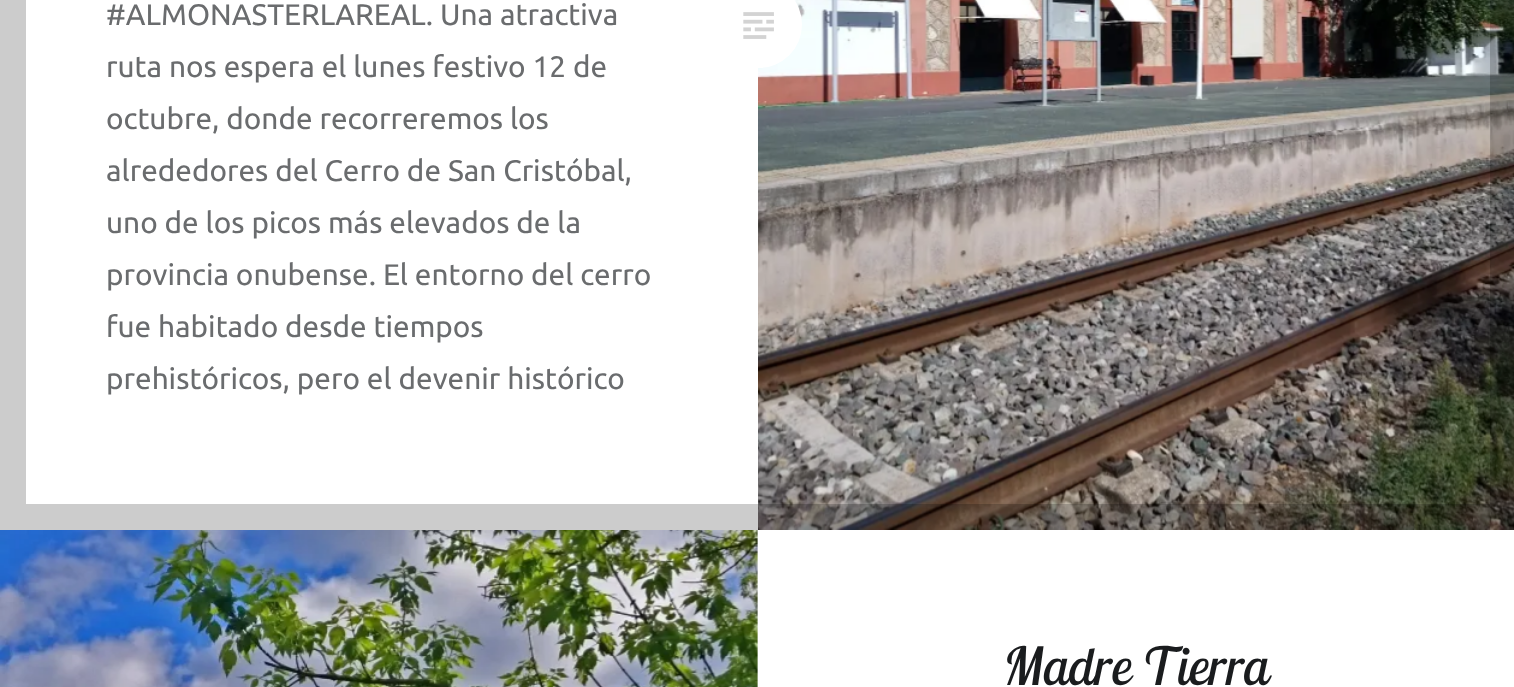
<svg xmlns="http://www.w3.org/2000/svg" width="1514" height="687">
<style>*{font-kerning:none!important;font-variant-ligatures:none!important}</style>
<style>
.a{font:29.75px Ubuntu;fill:#6a6c6e}
.b{font:italic 52.5px Lobster Two;fill:#1a1c1e}
</style>
<rect width="100%" height="100%" fill="#fff"/>
<image href="2.png" x="758" y="0" width="756" height="530"/>
<rect fill="#fff" x="714" y="-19" width="88" height="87" rx="43.5"/>
<path fill="none" stroke="#00000033" stroke-width="26" d="M13 -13h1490v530H13z"/>
<image href="1.png" x="743" y="12" width="31" height="27"/>
<path fill="#f2f2f2" d="M757 530h1v157H757z"/>
<image href="3.png" x="0" y="530" width="758" height="157"/>
<text class="a" x="106" y="25">#ALMONASTERLAREAL. Una atractiva</text>
<text class="a" x="106" y="77">ruta nos espera el lunes festivo 12 de</text>
<text class="a" x="106" y="129">octubre, donde recorreremos los</text>
<text class="a" x="106" y="181">alrededores del Cerro de San Cristóbal,</text>
<text class="a" x="106" y="233">uno de los picos más elevados de la</text>
<text class="a" x="106" y="285">provincia onubense. El entorno del cerro</text>
<text class="a" x="106" y="337">fue habitado desde tiempos</text>
<text class="a" x="106" y="389">prehistóricos, pero el devenir histórico</text>
<text class="b" x="1004" y="685">Madre Tierra</text>
</svg>
